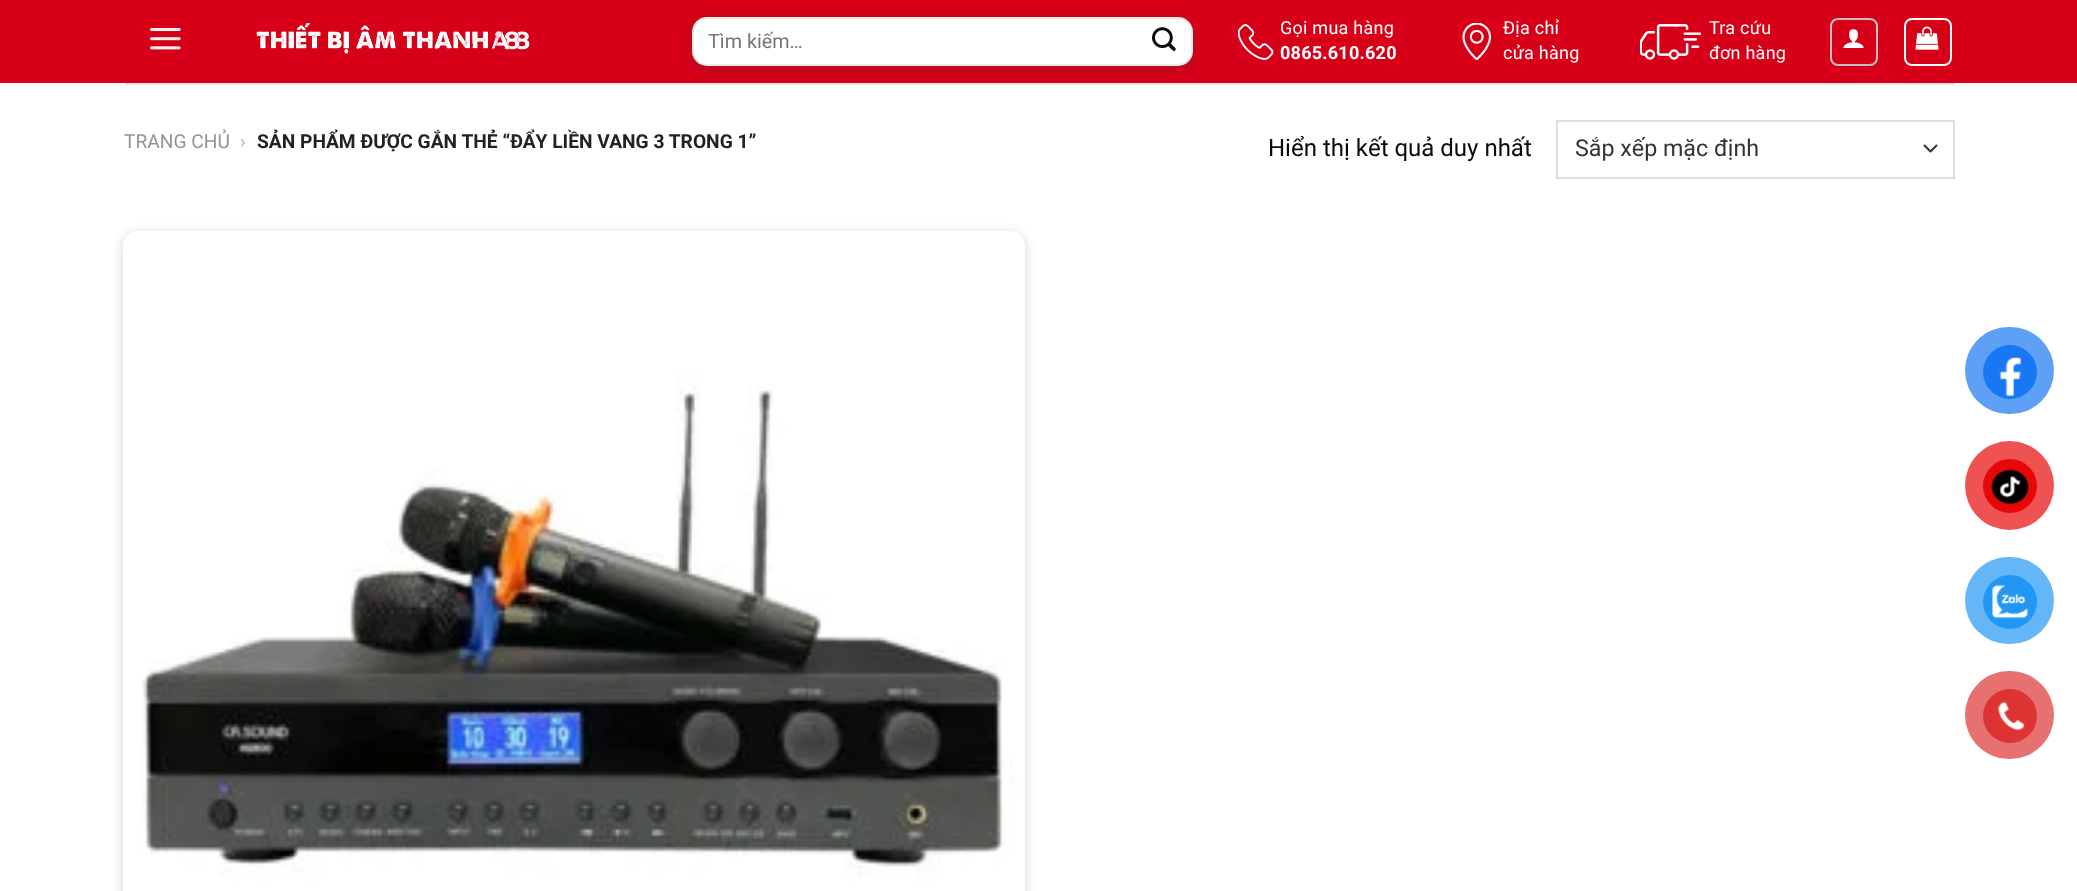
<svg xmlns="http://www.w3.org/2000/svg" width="2077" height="891">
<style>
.a{font:19.75px Roboto;fill:#757575}
.b{font:18px Roboto;letter-spacing:0.25px;fill:#fff}
.c{font:bold 18px Roboto;letter-spacing:0.25px;fill:#fff}
.d{font:19.2px Roboto;fill:#949494}
.e{font:19.2px Roboto;fill:#b2b2b2}
.f{font:bold 19.2px Roboto;fill:#222}
.g{font:24px Roboto;fill:#0a0a0a}
.h{font:23.25px Roboto;fill:#333}
</style>
<defs>
<clipPath id="clip1"><path d="M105 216h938v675h-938zm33 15h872c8.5 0 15 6.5 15 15v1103c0 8.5-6.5 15-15 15h-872c-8.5 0-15-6.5-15-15v-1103c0-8.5 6.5-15 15-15z" clip-rule="evenodd"/></clipPath>
</defs>
<rect width="100%" height="100%" fill="#fff"/>
<path fill="#d70018" d="M0 0h2077v83H0z"/>
<image href="1.png" x="150" y="28" width="31" height="22"/>
<image href="2.png" x="256" y="23" width="274" height="31"/>
<rect fill="#3c404326" filter="blur(4.5px)" x="689" y="17" width="507" height="55" rx="18"/>
<rect fill="#3c40431a" filter="blur(1.5px)" x="692" y="18" width="501" height="50" rx="15"/>
<rect fill="#fff" x="692" y="17" width="501" height="49" rx="15"/>
<rect fill="none" stroke="#00000017" stroke-width="2" x="693" y="18" width="499" height="47" rx="14"/>
<image href="3.png" x="1152" y="27" width="24" height="24"/>
<image href="4.png" x="1238" y="24" width="36" height="36"/>
<image href="5.png" x="1462" y="23" width="29" height="37"/>
<image href="6.png" x="1640" y="24" width="61" height="36"/>
<rect fill="none" stroke="#c0c0c0" stroke-width="2" x="1831" y="19" width="46" height="46" rx="7"/>
<image href="7.png" x="1843" y="29" width="21" height="19"/>
<rect fill="none" stroke="#fff" stroke-width="2" x="1905" y="19" width="46" height="46" rx="7"/>
<image href="8.png" x="1915" y="26" width="24" height="24"/>
<path fill="#e6e6e6" d="M125 83h1830v2H125z"/>
<path fill="none" stroke="#333" stroke-width="2" stroke-linecap="round" stroke-linejoin="round" d="M1924.5 145.5l6 6l6-6"/>
<path fill="none" stroke="#ddd" stroke-width="2" d="M1557 121h397v57H1557z"/>
<g clip-path="url(#clip1)">
<rect fill="#3c404326" filter="blur(4.5px)" x="120" y="231" width="908" height="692" rx="18"/>
</g>
<image href="9.png" x="141" y="254" width="884" height="637"/>
<rect fill="#5da0f6" x="1965" y="327" width="89" height="87" rx="43.5"/>
<circle fill="#1877f2" cx="2010" cy="372" r="27"/>
<image href="10.png" x="1999" y="356" width="23" height="41"/>
<circle fill="#ee5252" cx="2009.5" cy="485.5" r="44.5"/>
<circle fill="#e60808" cx="2010" cy="486" r="27"/>
<image href="11.png" x="1991" y="469" width="38" height="36"/>
<rect fill="#64b6f7" x="1965" y="557" width="89" height="87" rx="43.5"/>
<circle fill="#2196f3" cx="2010" cy="602" r="27"/>
<image href="12.png" x="1992" y="584" width="37" height="35"/>
<rect fill="#e77070" x="1965" y="671" width="89" height="88" rx="44"/>
<circle fill="#d33" cx="2010" cy="716" r="27"/>
<image href="13.png" x="1998" y="701" width="27" height="30"/>
<text class="a" x="708" y="48">Tìm kiếm…</text>
<text class="b" x="1280" y="34">Gọi mua hàng</text>
<text class="c" x="1280" y="59">0865.610.620</text>
<text class="b" x="1503" y="34">Địa chỉ</text>
<text class="b" x="1503" y="59">cửa hàng</text>
<text class="b" x="1709" y="34">Tra cứu</text>
<text class="b" x="1709" y="59">đơn hàng</text>
<text class="d" x="124" y="148">TRANG CHỦ</text>
<text class="e" x="240" y="148">›</text>
<text class="f" x="257" y="148">SẢN PHẨM ĐƯỢC GẮN THẺ “ĐẨY LIỀN VANG 3 TRONG 1”</text>
<text class="g" x="1268" y="156">Hiển thị kết quả duy nhất</text>
<text class="h" x="1575" y="156">Sắp xếp mặc định</text>
</svg>
